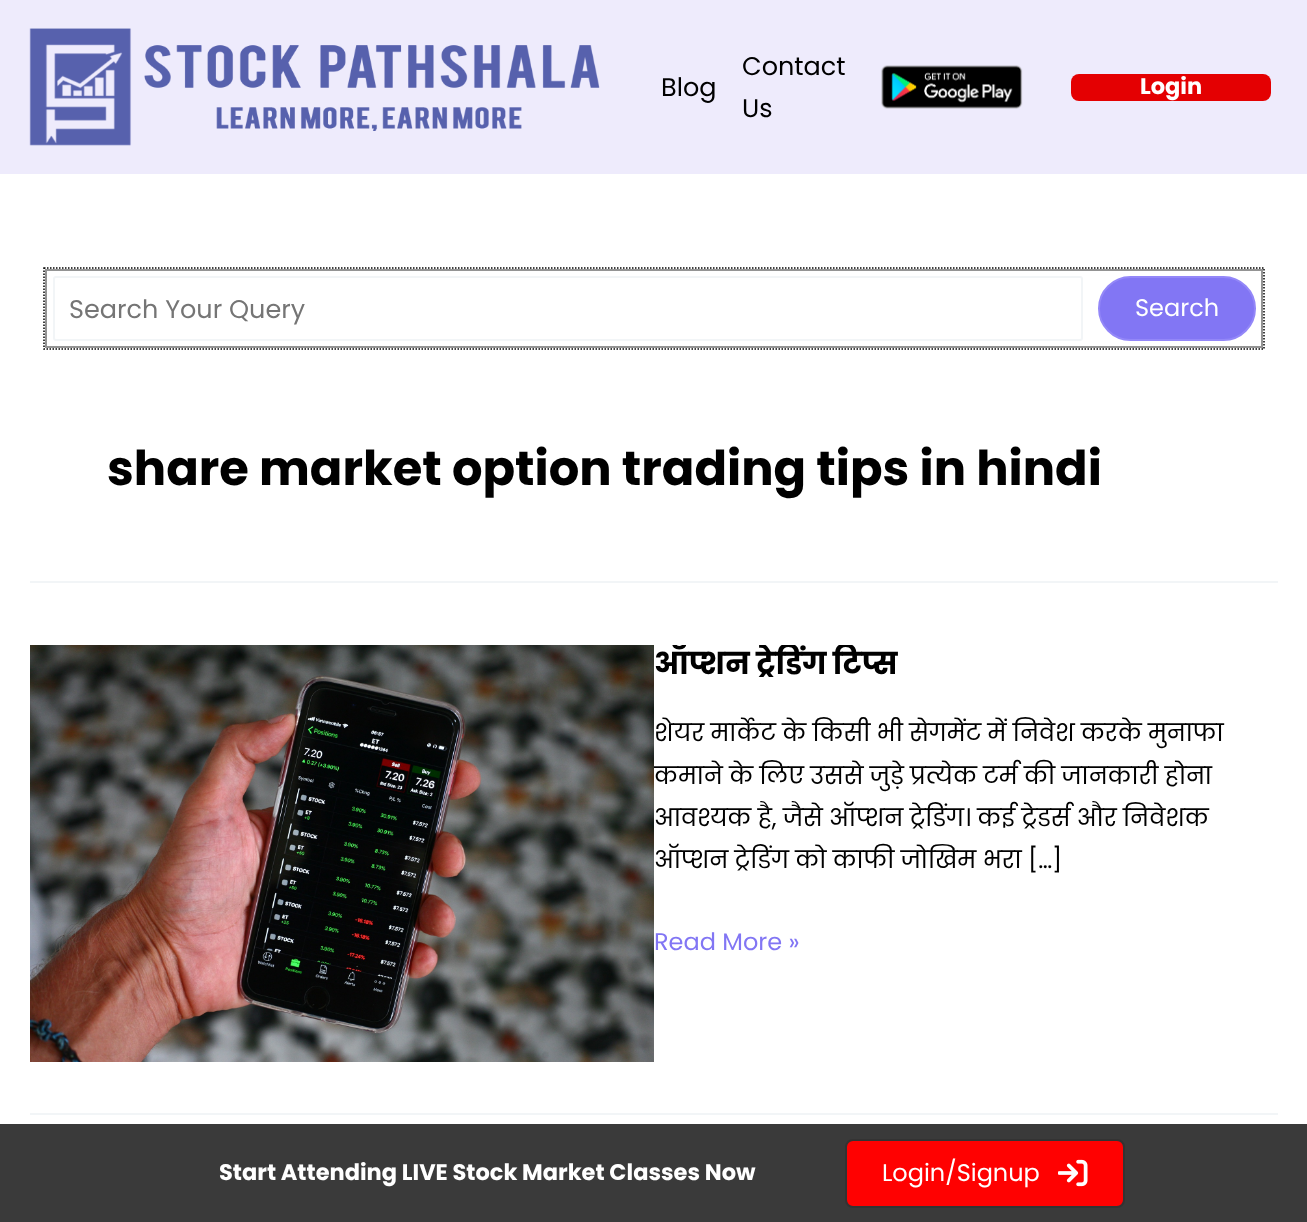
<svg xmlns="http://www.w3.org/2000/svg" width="1307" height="1222">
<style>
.a{font:25.5px Poppins;fill:#000}
.b{font:bold 22.5px Poppins;fill:#fff}
.c{font:25.5px Poppins;fill:#757575}
.d{font:24px Poppins;fill:#fff}
.e{font:bold 48px Poppins;fill:#000}
.f{font:bold 30px Poppins;fill:#000}
.g{font:24px Poppins;fill:#000}
.h{font:24px Poppins;fill:#8276f4}
</style>
<defs>
<clipPath id="clip1"><path d="M30 645h1248v468H30z"/></clipPath>
</defs>
<rect width="100%" height="100%" fill="#fff"/>
<path fill="#eeebfc" d="M0 0h1307v174H0z"/>
<image href="1.png" x="29" y="28" width="571" height="118"/>
<image href="2.png" x="881" y="65" width="142" height="44"/>
<rect fill="#e40002" x="1071" y="74" width="200" height="27" rx="8"/>
<path fill="none" stroke="#949494" stroke-width="2" d="M46 270h1216v77H46z"/>
<rect fill="none" stroke="#f2f5f7" stroke-width="2" x="54" y="277" width="1028" height="63" rx="2"/>
<rect fill="#8276f4" stroke="#9387f8" stroke-width="2" x="1099" y="277" width="156" height="63" rx="31.5"/>
<path fill="#f2f5f7" d="M30 581h1248v2H30z"/>
<path fill="#f2f5f7" d="M30 1113h1248v2H30z"/>
<path fill="#3a3a3a" d="M0 1124h1307v98H0z"/>
<rect fill="#ff0101" stroke="#333" stroke-width="2" x="846" y="1140" width="278" height="67" rx="7"/>
<image href="4.png" x="1058" y="1159" width="30" height="28"/>
<text class="a" x="661" y="96">Blog</text>
<text class="a" x="742" y="75">Contact</text>
<text class="a" x="742" y="117">Us</text>
<text class="b" x="1140" y="94">Login</text>
<text class="c" x="69" y="318">Search Your Query</text>
<text class="d" x="1135" y="316">Search</text>
<path fill="none" stroke="#000" stroke-width="1.5" stroke-dasharray="1.5 1.5" d="M44 268h1220v81h-1220z"/>
<text class="e" x="107" y="485">share market option trading tips in hindi</text>
<g clip-path="url(#clip1)">
<text class="f" x="654" y="674">ऑप्शन ट्रेडिंग टिप्स</text>
</g>
<text class="g" x="654" y="741">शेयर मार्केट के किसी भी सेगमेंट में निवेश करके मुनाफा</text>
<text class="g" x="654" y="784">कमाने के लिए उससे जुड़े प्रत्येक टर्म की जानकारी होना</text>
<image href="3.png" x="30" y="645" width="624" height="417"/>
<text class="g" x="654" y="826">आवश्यक है, जैसे ऑप्शन ट्रेडिंग। कई ट्रेडर्स और निवेशक</text>
<text class="g" x="654" y="868">ऑप्शन ट्रेडिंग को काफी जोखिम भरा […]</text>
<text class="h" x="654" y="950">Read More »</text>
<text class="b" x="219" y="1180">Start Attending LIVE Stock Market Classes Now</text>
<text class="d" x="882" y="1181">Login/Signup</text>
</svg>
